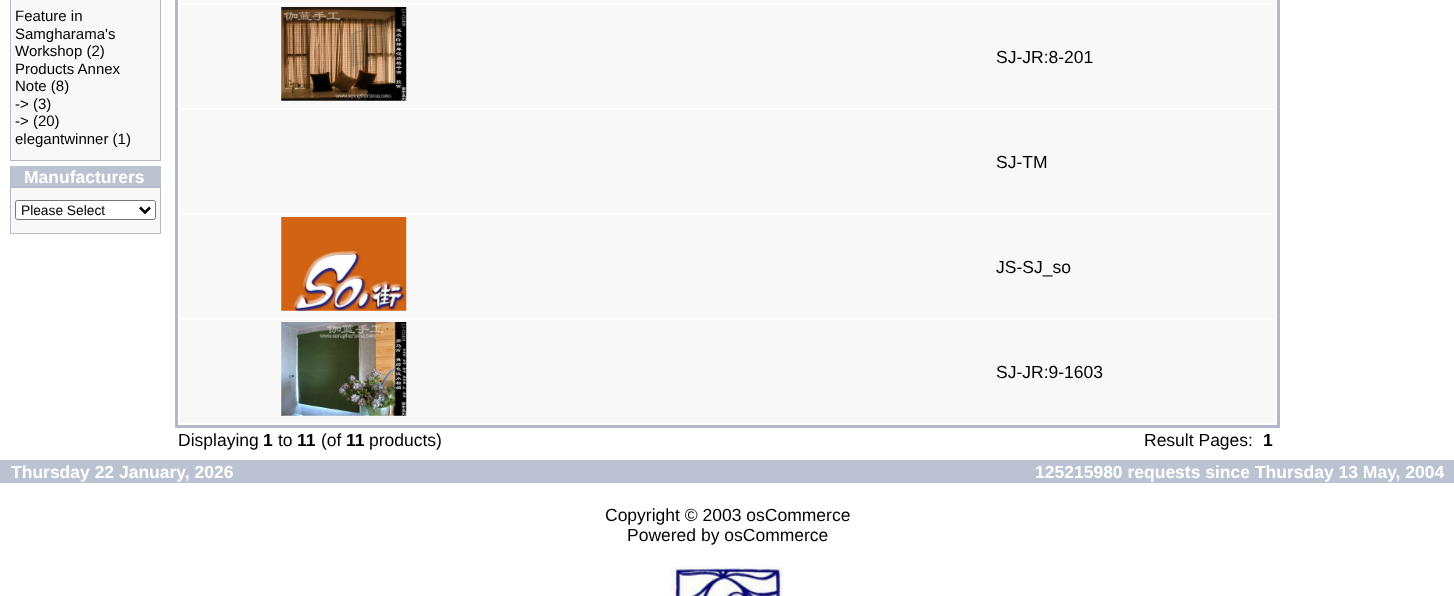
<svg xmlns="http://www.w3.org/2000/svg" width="1454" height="596">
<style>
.a{font:15px Liberation Sans;fill:#000}
.b{font:bold 17.5px Liberation Sans;fill:#fff}
.c{font:13.75px Liberation Sans;fill:#000}
.d{font:17.5px Liberation Sans;fill:#000}
.e{font:bold 17.5px Liberation Sans;fill:#000}
</style>
<rect width="100%" height="100%" fill="#fff"/>
<path fill="#b6b7cb" d="M10 0h151v161H10z"/>
<path fill="#f8f8f9" d="M11 0h149v160H11z"/>
<path fill="#bbc3d3" d="M10 166h151v20H10z"/>
<path fill="#b6b7cb" d="M10 186h151v48H10z"/>
<path fill="#f8f8f9" d="M11 188h149v45H11z"/>
<rect fill="#fff" stroke="#767676" x="15.5" y="200.5" width="140" height="19" rx="2"/>
<path fill="none" stroke="#000" stroke-width="2.5" d="M140 207.5l5 5l5-5"/>
<path fill="none" stroke="#b6b7cb" stroke-width="3" d="M176.5 -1.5h1102v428H176.5z"/>
<path fill="#f8f8f9" d="M180 0h1095v3H180z"/>
<path fill="#f8f8f9" d="M180 5h1095v103H180z"/>
<image href="1.png" x="281" y="7" width="126" height="94"/>
<path fill="#f8f8f9" d="M180 110h1095v103H180z"/>
<path fill="#f8f8f9" d="M180 215h1095v103H180z"/>
<image href="2.png" x="281" y="217" width="126" height="94"/>
<path fill="#f8f8f9" d="M180 320h1095v103H180z"/>
<image href="3.png" x="281" y="322" width="126" height="94"/>
<path fill="#bbc3d3" d="M0 460h1454v23H0z"/>
<image href="4.png" x="671" y="567" width="113" height="29"/>
<text class="a" x="15" y="21">Feature in</text>
<text class="a" x="15" y="39">Samgharama's</text>
<text class="a" x="15" y="56">Workshop (2)</text>
<text class="a" x="15" y="74">Products Annex</text>
<text class="a" x="15" y="91">Note (8)</text>
<text class="a" x="15" y="109">-&gt; (3)</text>
<text class="a" x="15" y="126">-&gt; (20)</text>
<text class="a" x="15" y="144">elegantwinner (1)</text>
<text class="b" x="24" y="183">Manufacturers</text>
<text class="c" x="21" y="215">Please Select</text>
<text class="d" x="996" y="63">SJ-JR:8-201</text>
<text class="d" x="996" y="168">SJ-TM</text>
<text class="d" x="996" y="273">JS-SJ_so</text>
<text class="d" x="996" y="378">SJ-JR:9-1603</text>
<text class="d" x="178" y="446">Displaying</text>
<text class="e" x="263" y="446">1</text>
<text class="d" x="278" y="446">to</text>
<text class="e" x="297" y="446">11</text>
<text class="d" x="321" y="446">(of</text>
<text class="e" x="346" y="446">11</text>
<text class="d" x="369" y="446">products)</text>
<text class="d" x="1144" y="446">Result Pages:</text>
<text class="e" x="1263" y="446">1</text>
<text class="b" x="11" y="478">Thursday 22 January, 2026</text>
<text class="b" x="1035" y="478">125215980 requests since Thursday 13 May, 2004</text>
<text class="d" x="605" y="521">Copyright © 2003 osCommerce</text>
<text class="d" x="627" y="541">Powered by osCommerce</text>
</svg>
